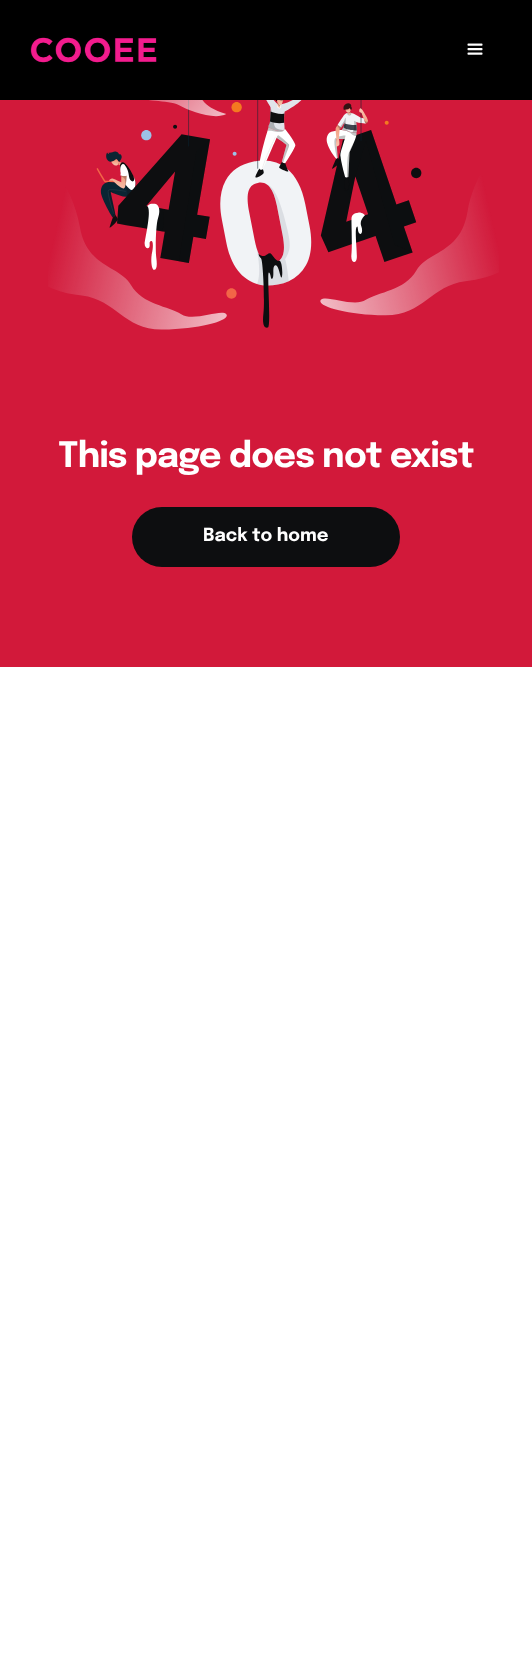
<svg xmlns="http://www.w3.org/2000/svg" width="532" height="1680">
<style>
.a{font:bold 35px Epilogue;letter-spacing:-0.8px;fill:#fff}
.b{font:bold 18px Epilogue;fill:#fff}
</style>
<rect width="100%" height="100%" fill="#fff"/>
<path fill="#d2193a" d="M0 100h532v567H0z"/>
<path fill="#000" d="M0 0h532v100H0z"/>
<image href="1.png" x="30" y="37" width="127" height="26"/>
<image href="2.png" x="467" y="43" width="16" height="12"/>
<image href="3.png" x="48" y="100" width="451" height="230"/>
<rect fill="#0d0e10" x="132" y="507" width="268" height="60" rx="30"/>
<text class="a" x="58" y="467">This page does not exist</text>
<text class="b" x="203" y="541">Back to home</text>
</svg>
